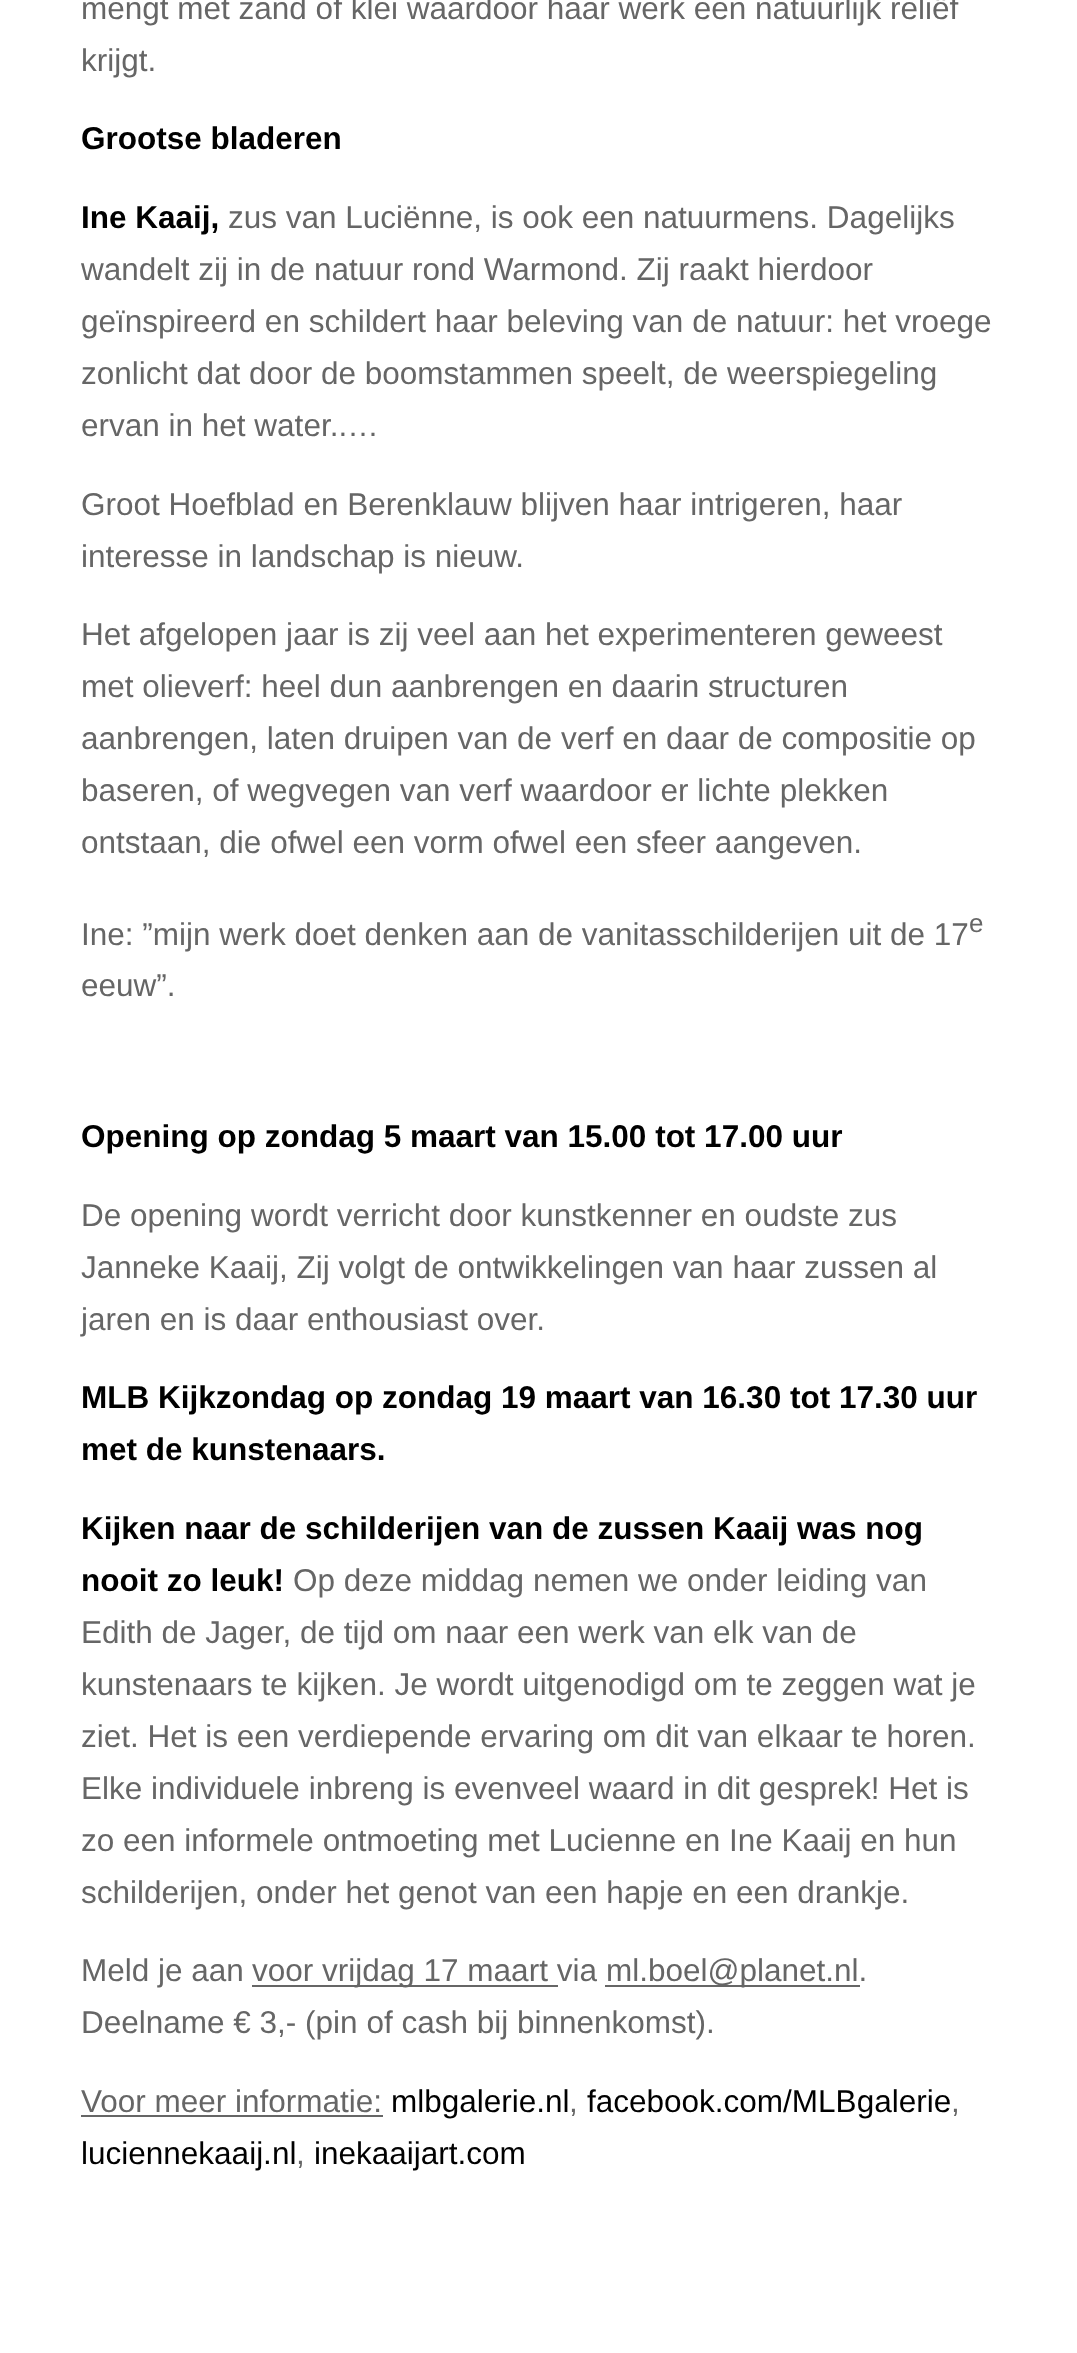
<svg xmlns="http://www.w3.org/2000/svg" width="1077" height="2353">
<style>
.a{font:31.5px Liberation Sans;fill:#666}
.b{font:bold 31.5px Liberation Sans;fill:#000}
.c{font:26px Liberation Sans;fill:#666}
.d{font:31.5px Liberation Sans;fill:#000}
</style>
<rect width="100%" height="100%" fill="#fff"/>
<path fill="#666" d="M252 1985h306v2H252z"/>
<path fill="#666" d="M605 1985h255v2H605z"/>
<path fill="#666" d="M81 2115h302v2H81z"/>
<text class="a" x="81" y="19">mengt met zand of klei waardoor haar werk een natuurlijk reliëf</text>
<text class="a" x="81" y="71">krijgt.</text>
<text class="b" x="81" y="149">Grootse bladeren</text>
<text class="b" x="81" y="228">Ine Kaaij,</text>
<text class="a" x="228" y="228">zus van Luciënne, is ook een natuurmens. Dagelijks</text>
<text class="a" x="81" y="280">wandelt zij in de natuur rond Warmond. Zij raakt hierdoor</text>
<text class="a" x="81" y="332">geïnspireerd en schildert haar beleving van de natuur: het vroege</text>
<text class="a" x="81" y="384">zonlicht dat door de boomstammen speelt, de weerspiegeling</text>
<text class="a" x="81" y="436">ervan in het water..…</text>
<text class="a" x="81" y="515">Groot Hoefblad en Berenklauw blijven haar intrigeren, haar</text>
<text class="a" x="81" y="567">interesse in landschap is nieuw.</text>
<text class="a" x="81" y="645">Het afgelopen jaar is zij veel aan het experimenteren geweest</text>
<text class="a" x="81" y="697">met olieverf: heel dun aanbrengen en daarin structuren</text>
<text class="a" x="81" y="749">aanbrengen, laten druipen van de verf en daar de compositie op</text>
<text class="a" x="81" y="801">baseren, of wegvegen van verf waardoor er lichte plekken</text>
<text class="a" x="81" y="853">ontstaan, die ofwel een vorm ofwel een sfeer aangeven.</text>
<text class="a" x="81" y="945">Ine: ”mijn werk doet denken aan de vanitasschilderijen uit de 17</text>
<text class="c" x="969" y="932">e</text>
<text class="a" x="81" y="996">eeuw”.</text>
<text class="b" x="81" y="1147">Opening op zondag 5 maart van 15.00 tot 17.00 uur</text>
<text class="a" x="81" y="1226">De opening wordt verricht door kunstkenner en oudste zus</text>
<text class="a" x="81" y="1278">Janneke Kaaij, Zij volgt de ontwikkelingen van haar zussen al</text>
<text class="a" x="81" y="1330">jaren en is daar enthousiast over.</text>
<text class="b" x="81" y="1408">MLB Kijkzondag op zondag 19 maart van 16.30 tot 17.30 uur</text>
<text class="b" x="81" y="1460">met de kunstenaars.</text>
<text class="b" x="81" y="1539">Kijken naar de schilderijen van de zussen Kaaij was nog</text>
<text class="b" x="81" y="1591">nooit zo leuk!</text>
<text class="a" x="293" y="1591">Op deze middag nemen we onder leiding van</text>
<text class="a" x="81" y="1643">Edith de Jager, de tijd om naar een werk van elk van de</text>
<text class="a" x="81" y="1695">kunstenaars te kijken. Je wordt uitgenodigd om te zeggen wat je</text>
<text class="a" x="81" y="1747">ziet. Het is een verdiepende ervaring om dit van elkaar te horen.</text>
<text class="a" x="81" y="1799">Elke individuele inbreng is evenveel waard in dit gesprek! Het is</text>
<text class="a" x="81" y="1851">zo een informele ontmoeting met Lucienne en Ine Kaaij en hun</text>
<text class="a" x="81" y="1903">schilderijen, onder het genot van een hapje en een drankje.</text>
<text class="a" x="81" y="1981">Meld je aan</text>
<text class="a" x="252" y="1981">voor vrijdag 17 maart via</text>
<text class="a" x="606" y="1981">ml.boel@planet.nl.</text>
<text class="a" x="81" y="2033">Deelname € 3,- (pin of cash bij binnenkomst).</text>
<text class="a" x="81" y="2112">Voor meer informatie:</text>
<text class="d" x="391" y="2112">mlbgalerie.nl</text>
<text class="a" x="569" y="2112">,</text>
<text class="d" x="587" y="2112">facebook.com/MLBgalerie</text>
<text class="a" x="951" y="2112">,</text>
<text class="d" x="81" y="2164">luciennekaaij.nl</text>
<text class="a" x="296" y="2164">,</text>
<text class="d" x="314" y="2164">inekaaijart.com</text>
</svg>
